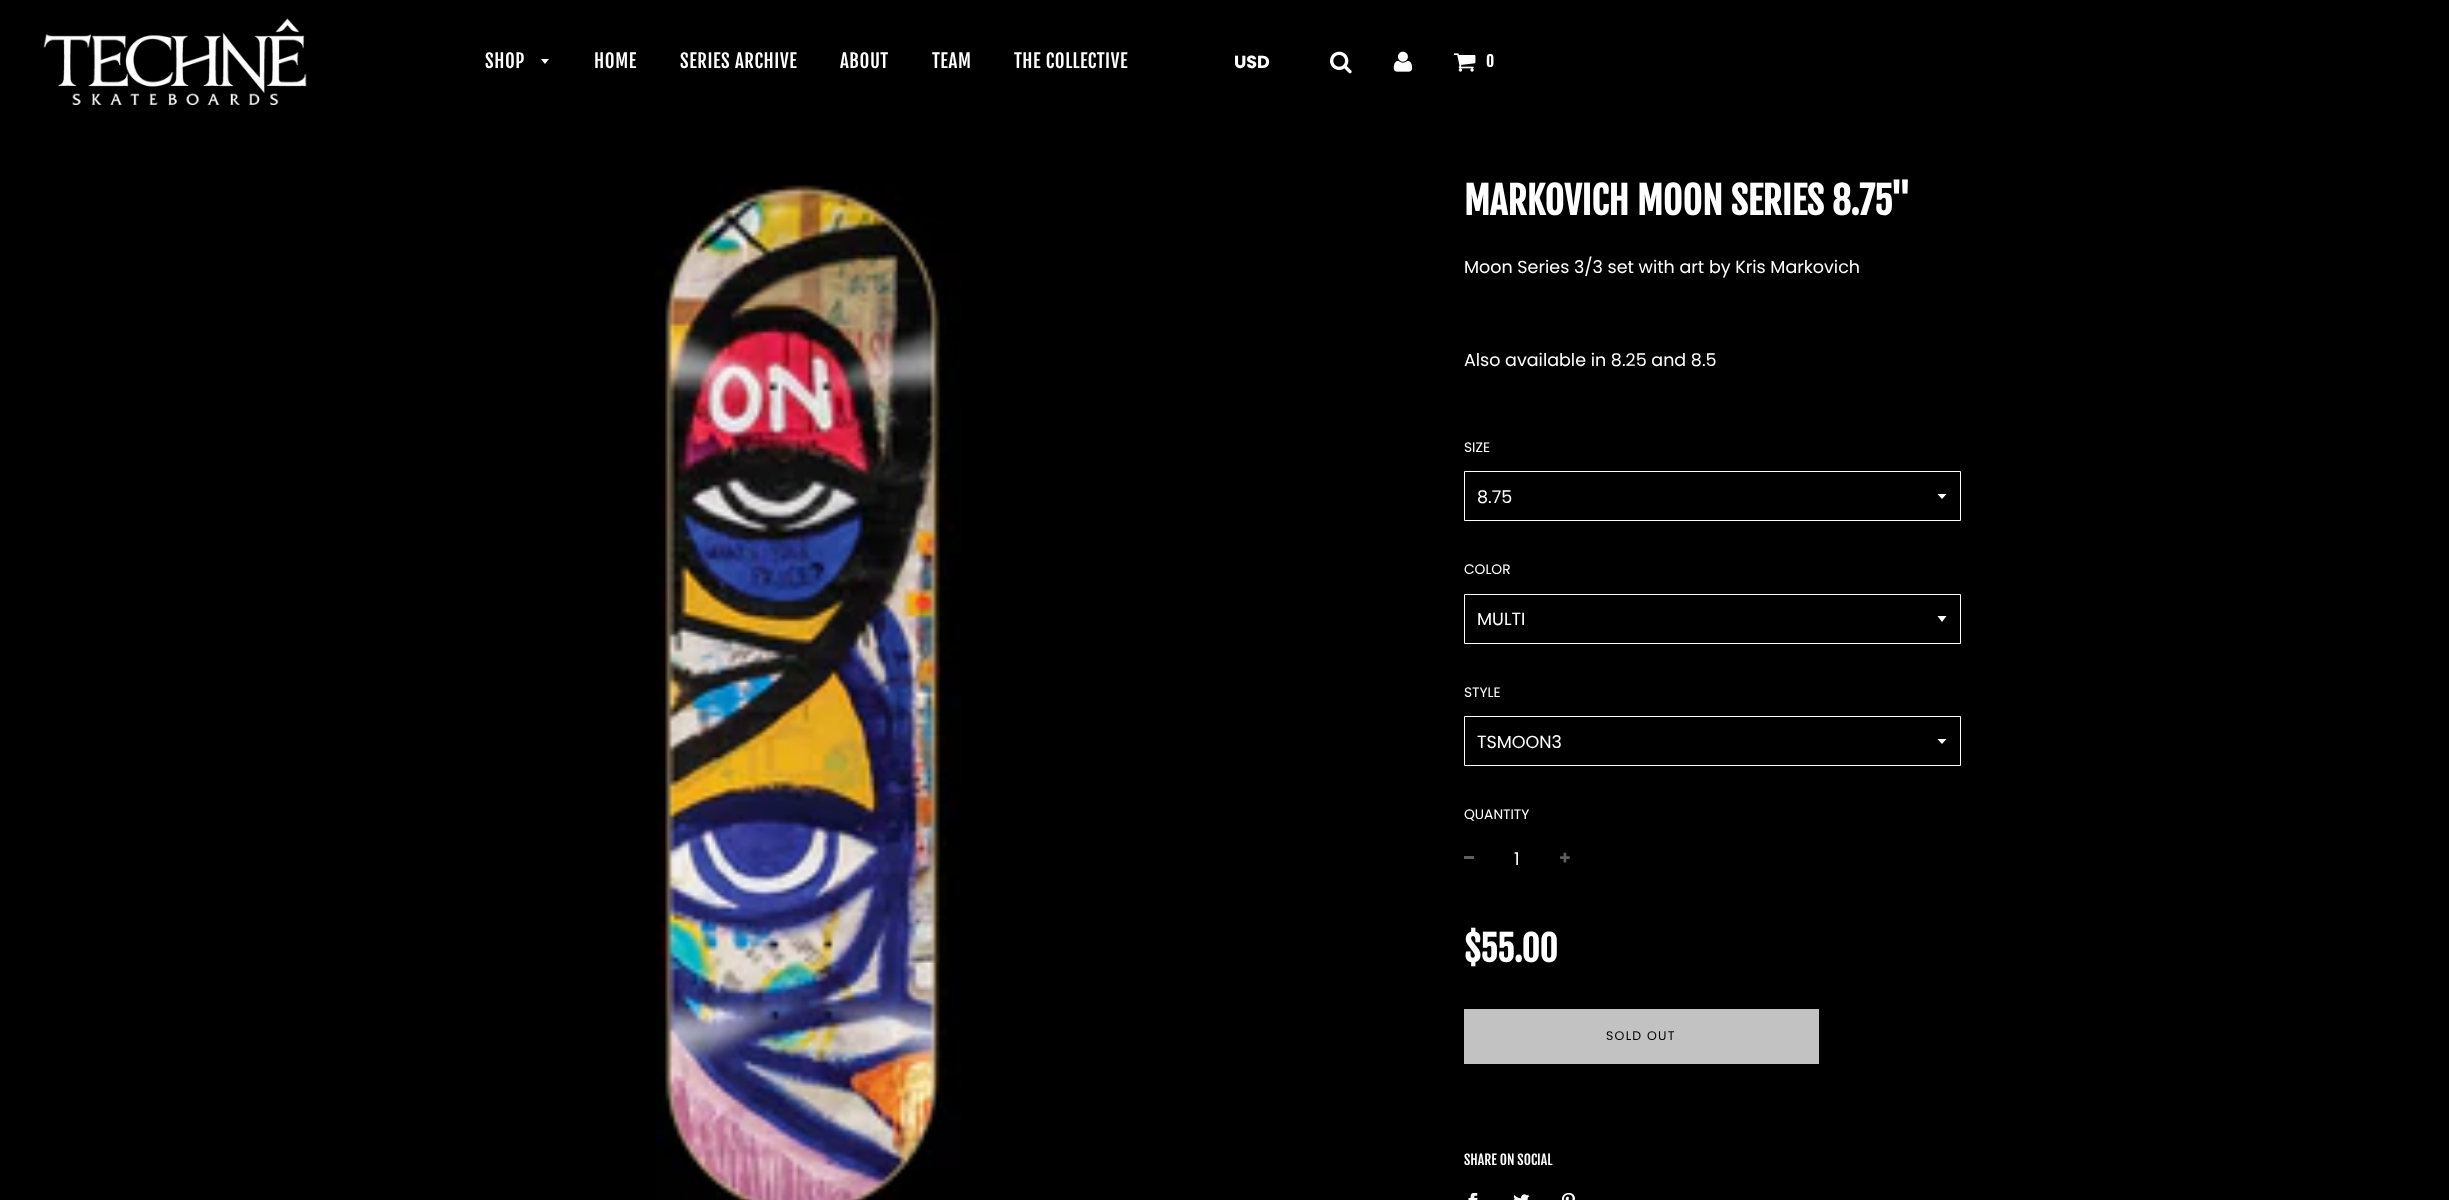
<svg xmlns="http://www.w3.org/2000/svg" width="2449" height="1200">
<style>
.a{font:18.75px Fjalla One;letter-spacing:0.6px;fill:#fff}
.b{font:bold 17.5px Poppins;fill:#fff}
.c{font:bold 15px Fjalla One;fill:#fff}
.d{font:bold 37.5px Fjalla One;fill:#fff}
.e{font:17.5px Poppins;fill:#fff}
.f{font:13.75px Poppins;fill:#fff}
.g{font:bold 35px Fjalla One;fill:#fff}
.h{font:12.5px Poppins;letter-spacing:1.25px;fill:#000}
.i{font:13.75px Fjalla One;fill:#fff}
</style>
<rect width="100%" height="100%" fill="#000"/>
<image href="1.png" x="43" y="18" width="264" height="87"/>
<path fill="#fff" d="M541 59l4 5l4-5z"/>
<image href="2.png" x="1330" y="51" width="22" height="23"/>
<image href="3.png" x="1393" y="51" width="20" height="21"/>
<image href="4.png" x="1453" y="53" width="23" height="19"/>
<image href="5.png" x="655" y="184" width="307" height="1016"/>
<path fill="#fff" d="M1937.5 494l4.5 5l4.5-5z"/>
<path fill="none" stroke="#fff" d="M1464.5 471.5h496v49H1464.5z"/>
<path fill="#fff" d="M1937.5 616l4.5 6l4.5-6z"/>
<path fill="none" stroke="#fff" d="M1464.5 594.5h496v49H1464.5z"/>
<path fill="#fff" d="M1937.5 739l4.5 5l4.5-5z"/>
<path fill="none" stroke="#fff" d="M1464.5 716.5h496v49H1464.5z"/>
<path fill="#5e5e5e" d="M1464 856h10v3H1464z"/>
<image href="6.png" x="1560" y="852" width="10" height="11"/>
<path fill="#c2c2c2" d="M1464 1009h355v55H1464z"/>
<image href="7.png" x="1468" y="1193" width="10" height="7"/>
<image href="8.png" x="1513" y="1194" width="17" height="6"/>
<image href="9.png" x="1562" y="1193" width="13" height="7"/>
<text class="a" x="485" y="68">SHOP</text>
<text class="a" x="594" y="68">HOME</text>
<text class="a" x="680" y="68">SERIES ARCHIVE</text>
<text class="a" x="840" y="68">ABOUT</text>
<text class="a" x="932" y="68">TEAM</text>
<text class="a" x="1014" y="68">THE COLLECTIVE</text>
<text class="b" x="1234" y="68">USD</text>
<text class="c" x="1486" y="67">0</text>
<text class="d" x="1464" y="215">MARKOVICH MOON SERIES 8.75"</text>
<text class="e" x="1464" y="273">Moon Series 3/3 set with art by Kris Markovich</text>
<text class="e" x="1464" y="366">Also available in 8.25 and 8.5</text>
<text class="f" x="1464" y="452">SIZE</text>
<text class="e" x="1477" y="503">8.75</text>
<text class="f" x="1464" y="574">COLOR</text>
<text class="e" x="1477" y="625">MULTI</text>
<text class="f" x="1464" y="697">STYLE</text>
<text class="e" x="1477" y="748">TSMOON3</text>
<text class="f" x="1464" y="819">QUANTITY</text>
<text class="e" x="1514" y="865">1</text>
<text class="g" x="1464" y="962">$55.00</text>
<text class="h" x="1606" y="1040">SOLD OUT</text>
<text class="i" x="1464" y="1165">SHARE ON SOCIAL</text>
</svg>
